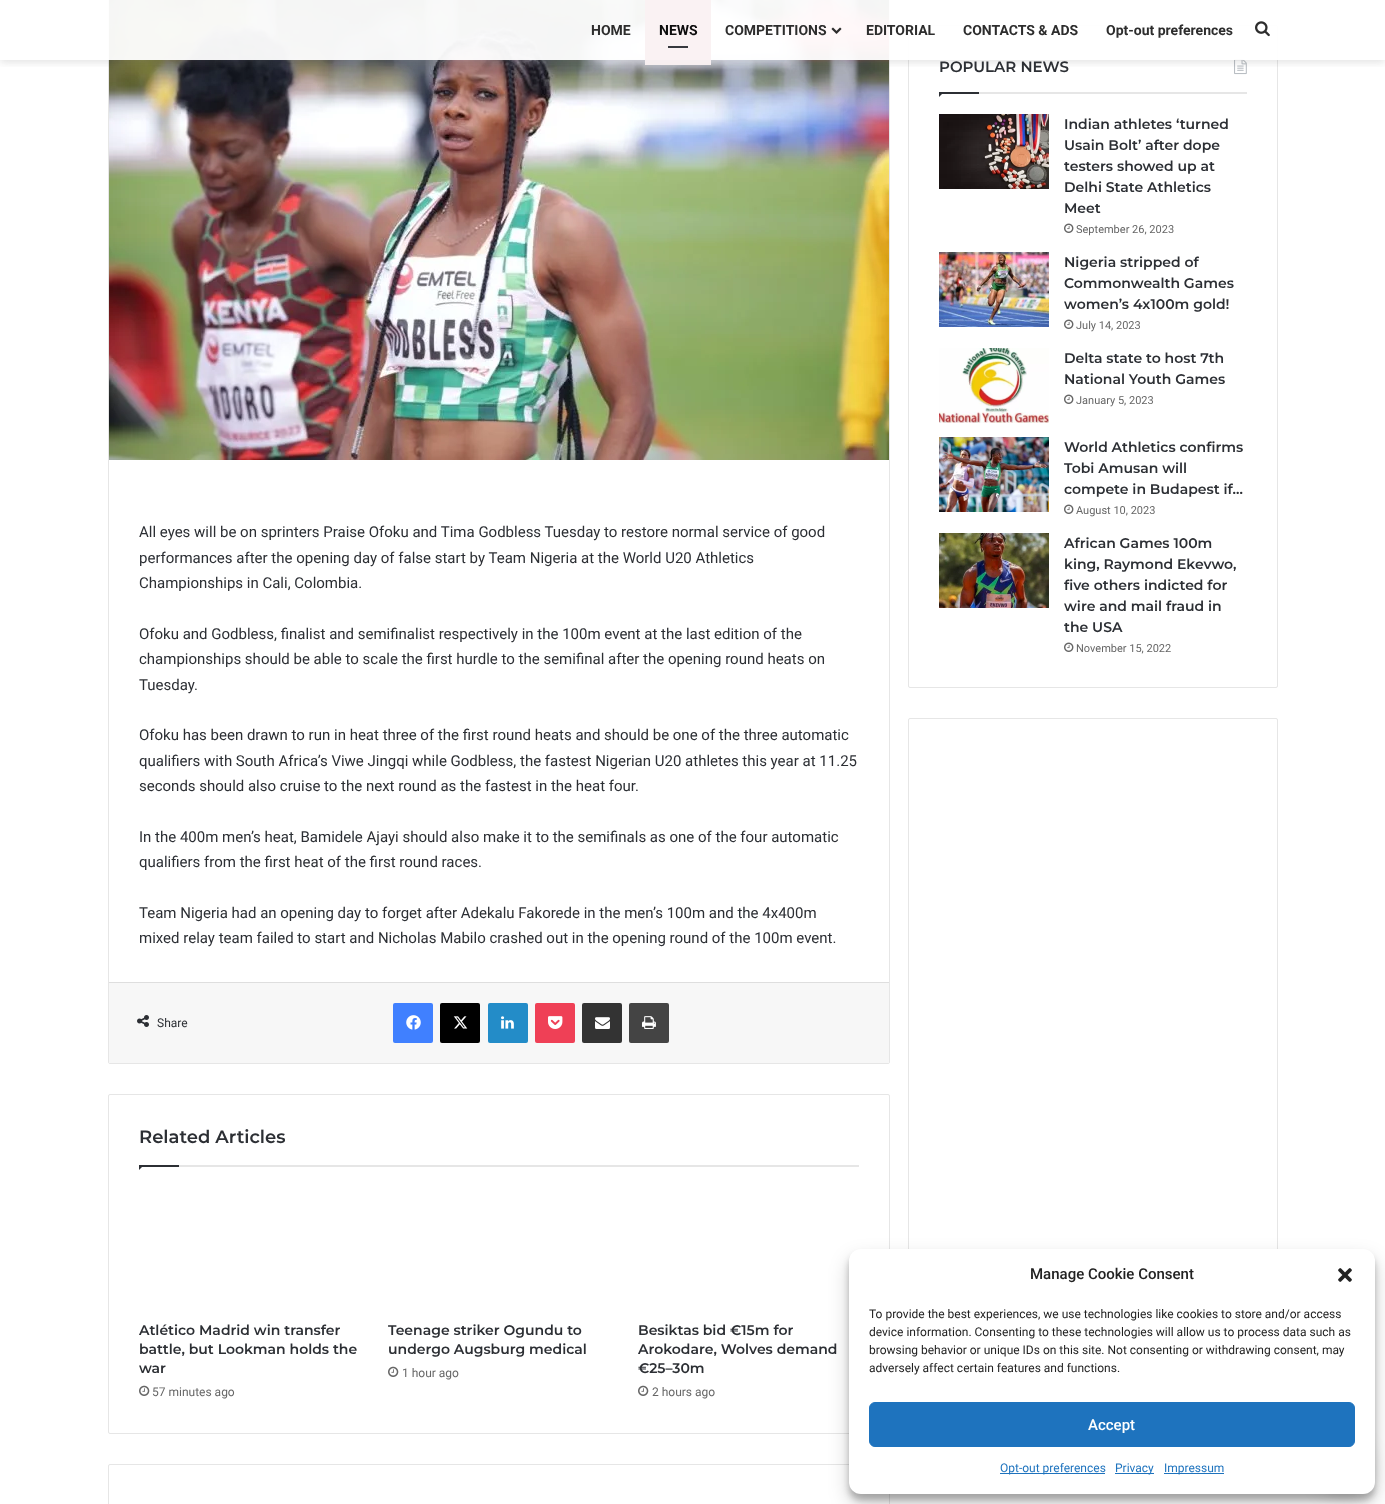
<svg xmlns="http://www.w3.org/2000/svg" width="1385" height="1504">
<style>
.a{font:bold 14px Roboto;fill:#2d2d2d}
.b{font:bold 14px Roboto;fill:#0d0d0d}
.c{font:600 15px Montserrat;fill:#2c2f34}
.d{font:600 14px Montserrat;fill:#2c2f34}
.e{font:11px Roboto;fill:#666}
.f{font:15px Roboto;fill:#2c2f34}
.g{font:12px Roboto;fill:#2c2f34}
.h{font:600 18px Montserrat;fill:#2c2f34}
.i{font:12px Roboto;fill:#666}
.j{font:500 15px Roboto;fill:#222}
.k{font:12px Roboto;fill:#222}
.l{font:500 15px Roboto;fill:#fff}
.m{font:12px Roboto;fill:#1e73be}
</style>
<defs>
<clipPath id="clip1"><path d="M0 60h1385v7H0z"/></clipPath>
</defs>
<rect width="100%" height="100%" fill="#fff"/>
<rect fill="none" stroke="#e6e6e6" x="908.5" y="25.5" width="369" height="662" rx="1.5"/>
<image href="3.png" x="1234" y="59" width="13" height="16"/>
<rect fill="none" stroke="#e6e6e6" x="108.5" y="-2.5" width="781" height="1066" rx="1.5"/>
<image href="10.png" x="109" y="0" width="780" height="460"/>
<g clip-path="url(#clip1)">
<path fill="#63636333" filter="blur(4px)" d="M0 2h1385v60H0z"/>
</g>
<path fill="#fffffff2" d="M108 0h1170v60H108z"/>
<path fill="#faf1f2f2" d="M645 60h66v5H645z"/>
<path fill="#faf1f2f2" d="M645 0h66v60H645z"/>
<path fill="#37393e" d="M668 46h20v2H668z"/>
<image href="1.png" x="831" y="27" width="11" height="7"/>
<image href="2.png" x="1255" y="21" width="15" height="16"/>
<path fill="#e6e6e6" d="M979 92h268v2H979z"/>
<path fill="#2c2f34" d="M939 92h5l-5 5z"/>
<path fill="#2c2f34" d="M939 92h40v2H939z"/>
<image href="4.png" x="939" y="114" width="110" height="75"/>
<image href="5.png" x="1064" y="223" width="10" height="10"/>
<image href="6.png" x="939" y="252" width="110" height="75"/>
<image href="5.png" x="1064" y="319" width="10" height="10"/>
<image href="7.png" x="939" y="348" width="110" height="75"/>
<image href="5.png" x="1064" y="394" width="10" height="10"/>
<image href="8.png" x="939" y="437" width="110" height="75"/>
<image href="5.png" x="1064" y="504" width="10" height="10"/>
<image href="9.png" x="939" y="533" width="110" height="75"/>
<image href="5.png" x="1064" y="642" width="10" height="10"/>
<rect fill="none" stroke="#e6e6e6" x="908.5" y="718.5" width="369" height="633" rx="1.5"/>
<path fill="#f7f7f7" d="M109 983h780v80H109z"/>
<path fill="#dedede" d="M109 982h780v1H109z"/>
<image href="11.png" x="137" y="1015" width="12" height="12"/>
<rect fill="#4080ff" x="393" y="1003" width="40" height="40" rx="2"/>
<image href="12.png" x="406" y="1015" width="15" height="15"/>
<rect fill="#000" x="440" y="1003" width="40" height="40" rx="2"/>
<image href="13.png" x="453" y="1016" width="15" height="13"/>
<rect fill="#238cc8" x="488" y="1003" width="40" height="40" rx="2"/>
<image href="14.png" x="501" y="1016" width="13" height="13"/>
<rect fill="#ef4056" x="535" y="1003" width="40" height="40" rx="2"/>
<image href="15.png" x="548" y="1016" width="15" height="13"/>
<rect fill="#333" x="582" y="1003" width="40" height="40" rx="2"/>
<image href="16.png" x="595" y="1017" width="15" height="12"/>
<rect fill="#444" x="629" y="1003" width="40" height="40" rx="2"/>
<image href="17.png" x="642" y="1016" width="14" height="13"/>
<rect fill="none" stroke="#e6e6e6" x="108.5" y="1094.5" width="781" height="339" rx="1.5"/>
<path fill="#e6e6e6" d="M179 1165h680v2H179z"/>
<path fill="#2c2f34" d="M139 1165h5l-5 5z"/>
<path fill="#2c2f34" d="M139 1165h40v2H139z"/>
<image href="18.png" x="139" y="1385" width="11" height="11"/>
<image href="18.png" x="388" y="1366" width="11" height="11"/>
<image href="18.png" x="638" y="1385" width="11" height="11"/>
<rect fill="none" stroke="#e6e6e6" x="108.5" y="1464.5" width="781" height="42" rx="1.5"/>
<rect fill="#0000004d" filter="blur(12.5px)" x="1323" y="1447" width="42" height="42" rx="21"/>
<rect fill="#0000003b" filter="blur(3px)" x="849" y="1255" width="526" height="245" rx="12"/>
<rect fill="#00000030" filter="blur(10px)" x="849" y="1259" width="526" height="245" rx="12"/>
<rect fill="#fff" x="849" y="1249" width="526" height="245" rx="12"/>
<image href="19.png" x="1338" y="1268" width="14" height="14"/>
<rect fill="#1e73be" stroke="#1e73be" x="869.5" y="1402.5" width="485" height="44" rx="5.5"/>
<path fill="#1e73be" d="M1000 1473h105v1H1000z"/>
<path fill="#1e73be" d="M1115 1473h39v1H1115z"/>
<path fill="#1e73be" d="M1164 1473h60v1H1164z"/>
<text class="a" x="591" y="35">HOME</text>
<text class="b" x="659" y="35">NEWS</text>
<text class="a" x="725" y="35">COMPETITIONS</text>
<text class="a" x="866" y="35">EDITORIAL</text>
<text class="a" x="963" y="35">CONTACTS &amp; ADS</text>
<text class="a" x="1106" y="35">Opt-out preferences</text>
<text class="c" x="939" y="72">POPULAR NEWS</text>
<text class="d" x="1064" y="129">Indian athletes ‘turned</text>
<text class="d" x="1064" y="150">Usain Bolt’ after dope</text>
<text class="d" x="1064" y="171">testers showed up at</text>
<text class="d" x="1064" y="192">Delhi State Athletics</text>
<text class="d" x="1064" y="213">Meet</text>
<text class="e" x="1076" y="233">September 26, 2023</text>
<text class="d" x="1064" y="267">Nigeria stripped of</text>
<text class="d" x="1064" y="288">Commonwealth Games</text>
<text class="d" x="1064" y="309">women’s 4x100m gold!</text>
<text class="e" x="1076" y="329">July 14, 2023</text>
<text class="d" x="1064" y="363">Delta state to host 7th</text>
<text class="d" x="1064" y="384">National Youth Games</text>
<text class="e" x="1076" y="404">January 5, 2023</text>
<text class="d" x="1064" y="452">World Athletics confirms</text>
<text class="d" x="1064" y="473">Tobi Amusan will</text>
<text class="d" x="1064" y="494">compete in Budapest if…</text>
<text class="e" x="1076" y="514">August 10, 2023</text>
<text class="d" x="1064" y="548">African Games 100m</text>
<text class="d" x="1064" y="569">king, Raymond Ekevwo,</text>
<text class="d" x="1064" y="590">five others indicted for</text>
<text class="d" x="1064" y="611">wire and mail fraud in</text>
<text class="d" x="1064" y="632">the USA</text>
<text class="e" x="1076" y="652">November 15, 2022</text>
<text class="f" x="139" y="537">All eyes will be on sprinters Praise Ofoku and Tima Godbless Tuesday to restore normal service of good</text>
<text class="f" x="139" y="563">performances after the opening day of false start by Team Nigeria at the World U20 Athletics</text>
<text class="f" x="139" y="588">Championships in Cali, Colombia.</text>
<text class="f" x="139" y="639">Ofoku and Godbless, finalist and semifinalist respectively in the 100m event at the last edition of the</text>
<text class="f" x="139" y="664">championships should be able to scale the first hurdle to the semifinal after the opening round heats on</text>
<text class="f" x="139" y="690">Tuesday.</text>
<text class="f" x="139" y="740">Ofoku has been drawn to run in heat three of the first round heats and should be one of the three automatic</text>
<text class="f" x="139" y="766">qualifiers with South Africa’s Viwe Jingqi while Godbless, the fastest Nigerian U20 athletes this year at 11.25</text>
<text class="f" x="139" y="791">seconds should also cruise to the next round as the fastest in the heat four.</text>
<text class="f" x="139" y="842">In the 400m men’s heat, Bamidele Ajayi should also make it to the semifinals as one of the four automatic</text>
<text class="f" x="139" y="867">qualifiers from the first heat of the first round races.</text>
<text class="f" x="139" y="918">Team Nigeria had an opening day to forget after Adekalu Fakorede in the men’s 100m and the 4x400m</text>
<text class="f" x="139" y="943">mixed relay team failed to start and Nicholas Mabilo crashed out in the opening round of the 100m event.</text>
<text class="g" x="157" y="1027">Share</text>
<text class="h" x="139" y="1143">Related Articles</text>
<text class="d" x="139" y="1335">Atlético Madrid win transfer</text>
<text class="d" x="139" y="1354">battle, but Lookman holds the</text>
<text class="d" x="139" y="1373">war</text>
<text class="i" x="152" y="1396">57 minutes ago</text>
<text class="d" x="388" y="1335">Teenage striker Ogundu to</text>
<text class="d" x="388" y="1354">undergo Augsburg medical</text>
<text class="i" x="402" y="1377">1 hour ago</text>
<text class="d" x="638" y="1335">Besiktas bid €15m for</text>
<text class="d" x="638" y="1354">Arokodare, Wolves demand</text>
<text class="d" x="638" y="1373">€25–30m</text>
<text class="i" x="652" y="1396">2 hours ago</text>
<text class="j" x="1030" y="1279">Manage Cookie Consent</text>
<text class="k" x="869" y="1318">To provide the best experiences, we use technologies like cookies to store and/or access</text>
<text class="k" x="869" y="1336">device information. Consenting to these technologies will allow us to process data such as</text>
<text class="k" x="869" y="1354">browsing behavior or unique IDs on this site. Not consenting or withdrawing consent, may</text>
<text class="k" x="869" y="1372">adversely affect certain features and functions.</text>
<text class="l" x="1088" y="1430">Accept</text>
<text class="m" x="1000" y="1472">Opt-out preferences</text>
<text class="m" x="1115" y="1472">Privacy</text>
<text class="m" x="1164" y="1472">Impressum</text>
</svg>
